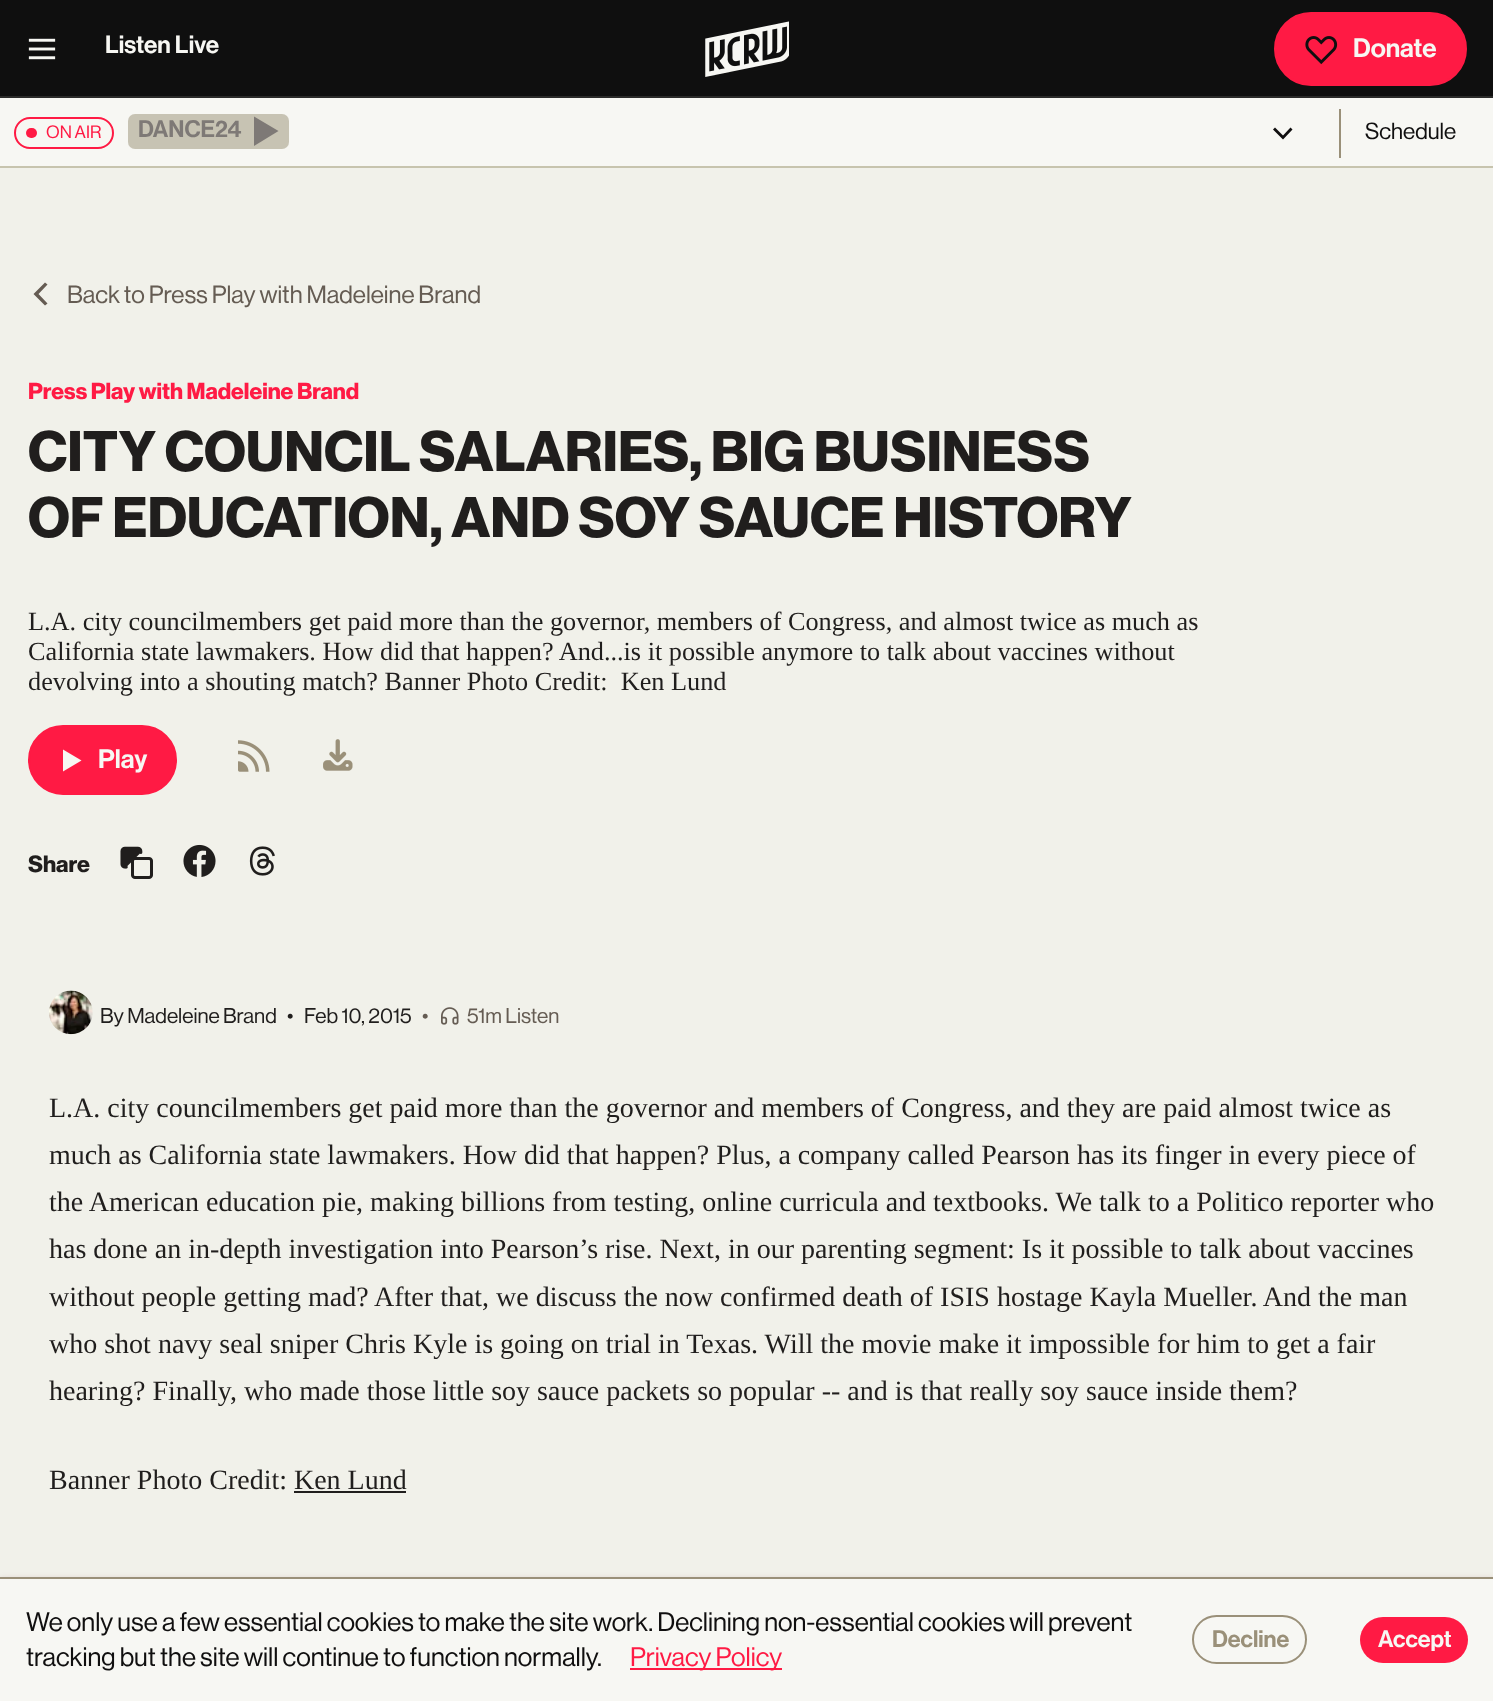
<svg xmlns="http://www.w3.org/2000/svg" width="1493" height="1701">
<style>
.a{font:500 24.5px 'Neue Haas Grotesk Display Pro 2';fill:#f7f7f3}
.b{font:500 26.25px 'Neue Haas Grotesk Display Pro 2';fill:#f7f7f3}
.c{font:500 17.5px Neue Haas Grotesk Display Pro;fill:#ff1a44}
.d{font:500 23.5px 'Neue Haas Grotesk Display Pro 2';fill:#7e7976}
.e{font:500 22.75px Neue Haas Grotesk Display Pro;fill:#100f0f}
.f{font:500 24.5px Neue Haas Grotesk Display Pro;fill:#655c53}
.g{font:bold 22.75px Neue Haas Grotesk Display Pro;fill:#ff1a44}
.h{font:bold 56px Neue Haas Grotesk Display Pro;fill:#201e1d}
.i{font:26.25px Liberation Serif;fill:#201e1d}
.j{font:bold 23px Neue Haas Grotesk Display Pro;fill:#201e1d}
.k{font:500 21px Neue Haas Grotesk Display Pro;fill:#201e1d}
.l{font:500 21px Neue Haas Grotesk Display Pro;fill:#655c53}
.m{font:28px Liberation Serif;fill:#201e1d}
.n{font:500 26.25px Neue Haas Grotesk Display Pro;fill:#100f0f}
.o{font:500 26.25px Neue Haas Grotesk Display Pro;fill:#ff1a44}
.p{font:500 23.5px 'Neue Haas Grotesk Display Pro 2';fill:#9a9079}
.q{font:500 23.5px 'Neue Haas Grotesk Display Pro 2';fill:#f7f7f3}
</style>
<rect width="100%" height="100%" fill="#f1f1ea"/>
<path fill="#0f0f0f" d="M0 0h1493v96H0z"/>
<path fill="#2b2b2a" d="M0 96h1493v2H0z"/>
<image href="1.png" x="28" y="38" width="28" height="22"/>
<image href="2.png" x="705" y="21" width="84" height="56"/>
<rect fill="#ff1a44" stroke="#ff1a44" stroke-width="2" x="1275" y="13" width="191" height="72" rx="36"/>
<image href="3.png" x="1305" y="36" width="33" height="29"/>
<path fill="#f7f7f3" d="M0 98h1493v68H0z"/>
<path fill="#c7c4ae" d="M0 166h1493v2H0z"/>
<rect fill="none" stroke="#ff1a44" stroke-width="2" x="15" y="118" width="98" height="30" rx="15"/>
<rect fill="#ff1a44" x="26" y="128" width="11" height="10" rx="5"/>
<rect fill="#efefef" x="128" y="114" width="161" height="35" rx="7"/>
<rect fill="#b6b19ab3" x="128" y="114" width="161" height="35" rx="7"/>
<path fill="#7e7976" d="M254 116.5v29.5l24.5-15z"/>
<path fill="#100f0f" fill-rule="evenodd" d="M1273 129.5l2-2l8 8l7.5-8l2 2l-9.5 10z"/>
<path fill="#9a9079" d="M1339 109h2v49H1339z"/>
<path fill="#655c53" fill-rule="evenodd" d="M45 282.5l2.5 2l-9 9.5l9 9.5l-2.5 2l-11.5-11.5z"/>
<rect fill="#ff1a44" stroke="#ff1a44" stroke-width="2" x="29" y="726" width="147" height="68" rx="34"/>
<path fill="#f7f7f3" d="M63 749.5v22l18.5-11z"/>
<image href="4.png" x="238" y="740" width="32" height="32"/>
<image href="5.png" x="323" y="739" width="30" height="32"/>
<image href="6.png" x="120" y="846" width="33" height="33"/>
<image href="7.png" x="183" y="844" width="33" height="33"/>
<image href="8.png" x="249" y="846" width="26" height="30"/>
<image href="9.png" x="49" y="990" width="44" height="45"/>
<image href="10.png" x="441" y="1007" width="18" height="18"/>
<path fill="#201e1d" d="M294 1491h112v2H294z"/>
<path fill="#67051140" filter="blur(3.5px)" d="M0 1580h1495v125H0z"/>
<path fill="#f7f7f3" d="M0 1579h1493v122H0z"/>
<path fill="#9a9079" d="M0 1577h1493v2H0z"/>
<path fill="#ff1a44" d="M630 1668h152v2H630z"/>
<rect fill="none" stroke="#9a9079" stroke-width="2" x="1193" y="1616" width="113" height="47" rx="23.5"/>
<rect fill="#ff1a44" x="1360" y="1617" width="108" height="46" rx="23"/>
<text class="a" x="105" y="53">Listen Live</text>
<text class="b" x="1353" y="57">Donate</text>
<text class="c" x="46" y="138">ON AIR</text>
<text class="d" x="138" y="137">DANCE24</text>
<text class="e" x="1365" y="139">Schedule</text>
<text class="f" x="67" y="303">Back to Press Play with Madeleine Brand</text>
<text class="g" x="28" y="399">Press Play with Madeleine Brand</text>
<text class="h" x="28" y="471">CITY COUNCIL SALARIES, BIG BUSINESS</text>
<text class="h" x="28" y="537">OF EDUCATION, AND SOY SAUCE HISTORY</text>
<text class="i" x="28" y="630">L.A. city councilmembers get paid more than the governor, members of Congress, and almost twice as much as</text>
<text class="i" x="28" y="660">California state lawmakers. How did that happen? And...is it possible anymore to talk about vaccines without</text>
<text class="i" xml:space="preserve" x="28" y="690">devolving into a shouting match? Banner Photo Credit:  Ken Lund</text>
<text class="b" x="98" y="768">Play</text>
<text class="j" x="28" y="872">Share</text>
<text class="k" x="100" y="1023">By Madeleine Brand</text>
<text class="k" x="287" y="1023">•</text>
<text class="k" x="304" y="1023">Feb 10, 2015</text>
<text class="l" x="422" y="1023">•</text>
<text class="l" x="467" y="1023">51m Listen</text>
<text class="m" x="49" y="1117">L.A. city councilmembers get paid more than the governor and members of Congress, and they are paid almost twice as</text>
<text class="m" x="49" y="1164">much as California state lawmakers. How did that happen? Plus, a company called Pearson has its finger in every piece of</text>
<text class="m" x="49" y="1211">the American education pie, making billions from testing, online curricula and textbooks. We talk to a Politico reporter who</text>
<text class="m" x="49" y="1258">has done an in-depth investigation into Pearson’s rise. Next, in our parenting segment: Is it possible to talk about vaccines</text>
<text class="m" x="49" y="1306">without people getting mad? After that, we discuss the now confirmed death of ISIS hostage Kayla Mueller. And the man</text>
<text class="m" x="49" y="1353">who shot navy seal sniper Chris Kyle is going on trial in Texas. Will the movie make it impossible for him to get a fair</text>
<text class="m" x="49" y="1400">hearing? Finally, who made those little soy sauce packets so popular -- and is that really soy sauce inside them?</text>
<text class="m" x="49" y="1489">Banner Photo Credit: Ken Lund</text>
<text class="n" x="26" y="1631">We only use a few essential cookies to make the site work. Declining non-essential cookies will prevent</text>
<text class="n" x="26" y="1666">tracking but the site will continue to function normally.</text>
<text class="o" x="630" y="1666">Privacy Policy</text>
<text class="p" x="1212" y="1647">Decline</text>
<text class="q" x="1378" y="1647">Accept</text>
</svg>
